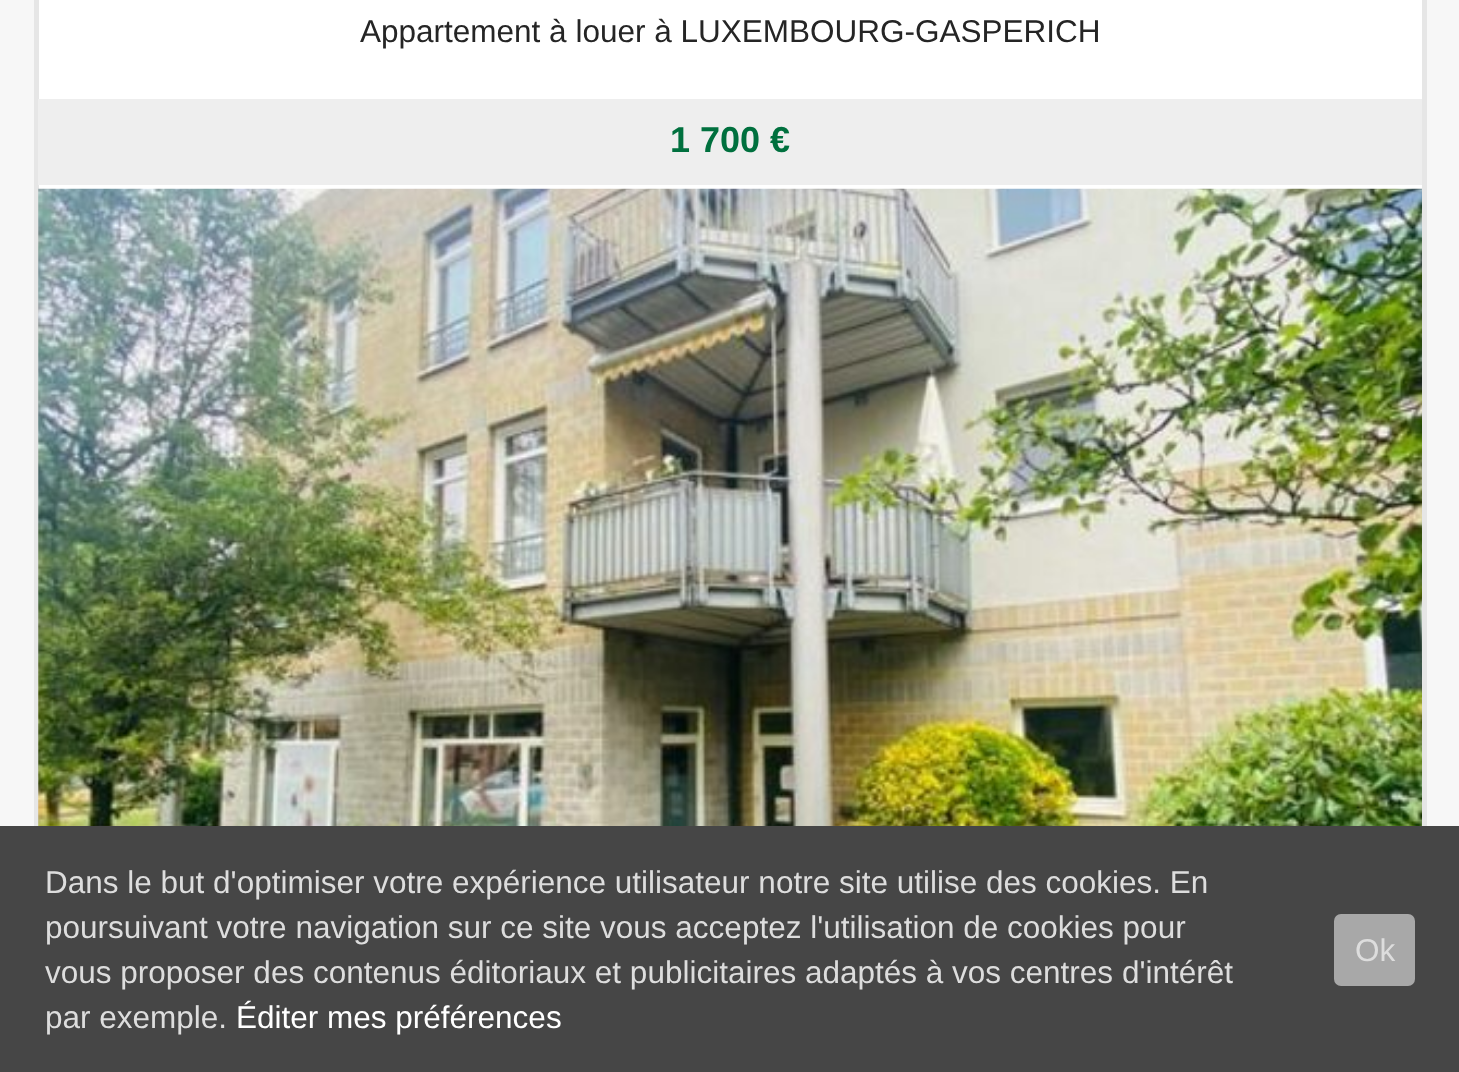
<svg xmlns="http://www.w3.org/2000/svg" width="1459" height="1072">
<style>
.a{font:31.5px Liberation Sans;fill:#252525}
.b{font:bold 36px Liberation Sans;fill:#00703e}
.c{font:31.5px Liberation Sans;fill:#ddd}
.d{font:31.5px Liberation Sans;fill:#fff}
</style>
<rect width="100%" height="100%" fill="#f7f7f7"/>
<path fill="#fff" d="M39 0h1383v189H39z"/>
<path fill="none" stroke="#e6e6e6" stroke-width="5" d="M36.5 -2.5h1388v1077H36.5z"/>
<path fill="#eee" d="M38 99h1384v86H38z"/>
<image href="1.png" x="38" y="188" width="1384" height="638"/>
<path fill="#464646" d="M0 826h1459v246H0z"/>
<rect fill="#a8a8a8" x="1334" y="914" width="81" height="72" rx="7"/>
<text class="a" x="360" y="42">Appartement à louer à LUXEMBOURG-GASPERICH</text>
<text class="b" x="670" y="152">1 700 €</text>
<text class="c" x="45" y="893">Dans le but d'optimiser votre expérience utilisateur notre site utilise des cookies. En</text>
<text class="c" x="45" y="938">poursuivant votre navigation sur ce site vous acceptez l'utilisation de cookies pour</text>
<text class="c" x="45" y="983">vous proposer des contenus éditoriaux et publicitaires adaptés à vos centres d'intérêt</text>
<text class="c" x="45" y="1028">par exemple.</text>
<text class="d" x="236" y="1028">Éditer mes préférences</text>
<text class="c" x="1355" y="961">Ok</text>
</svg>
